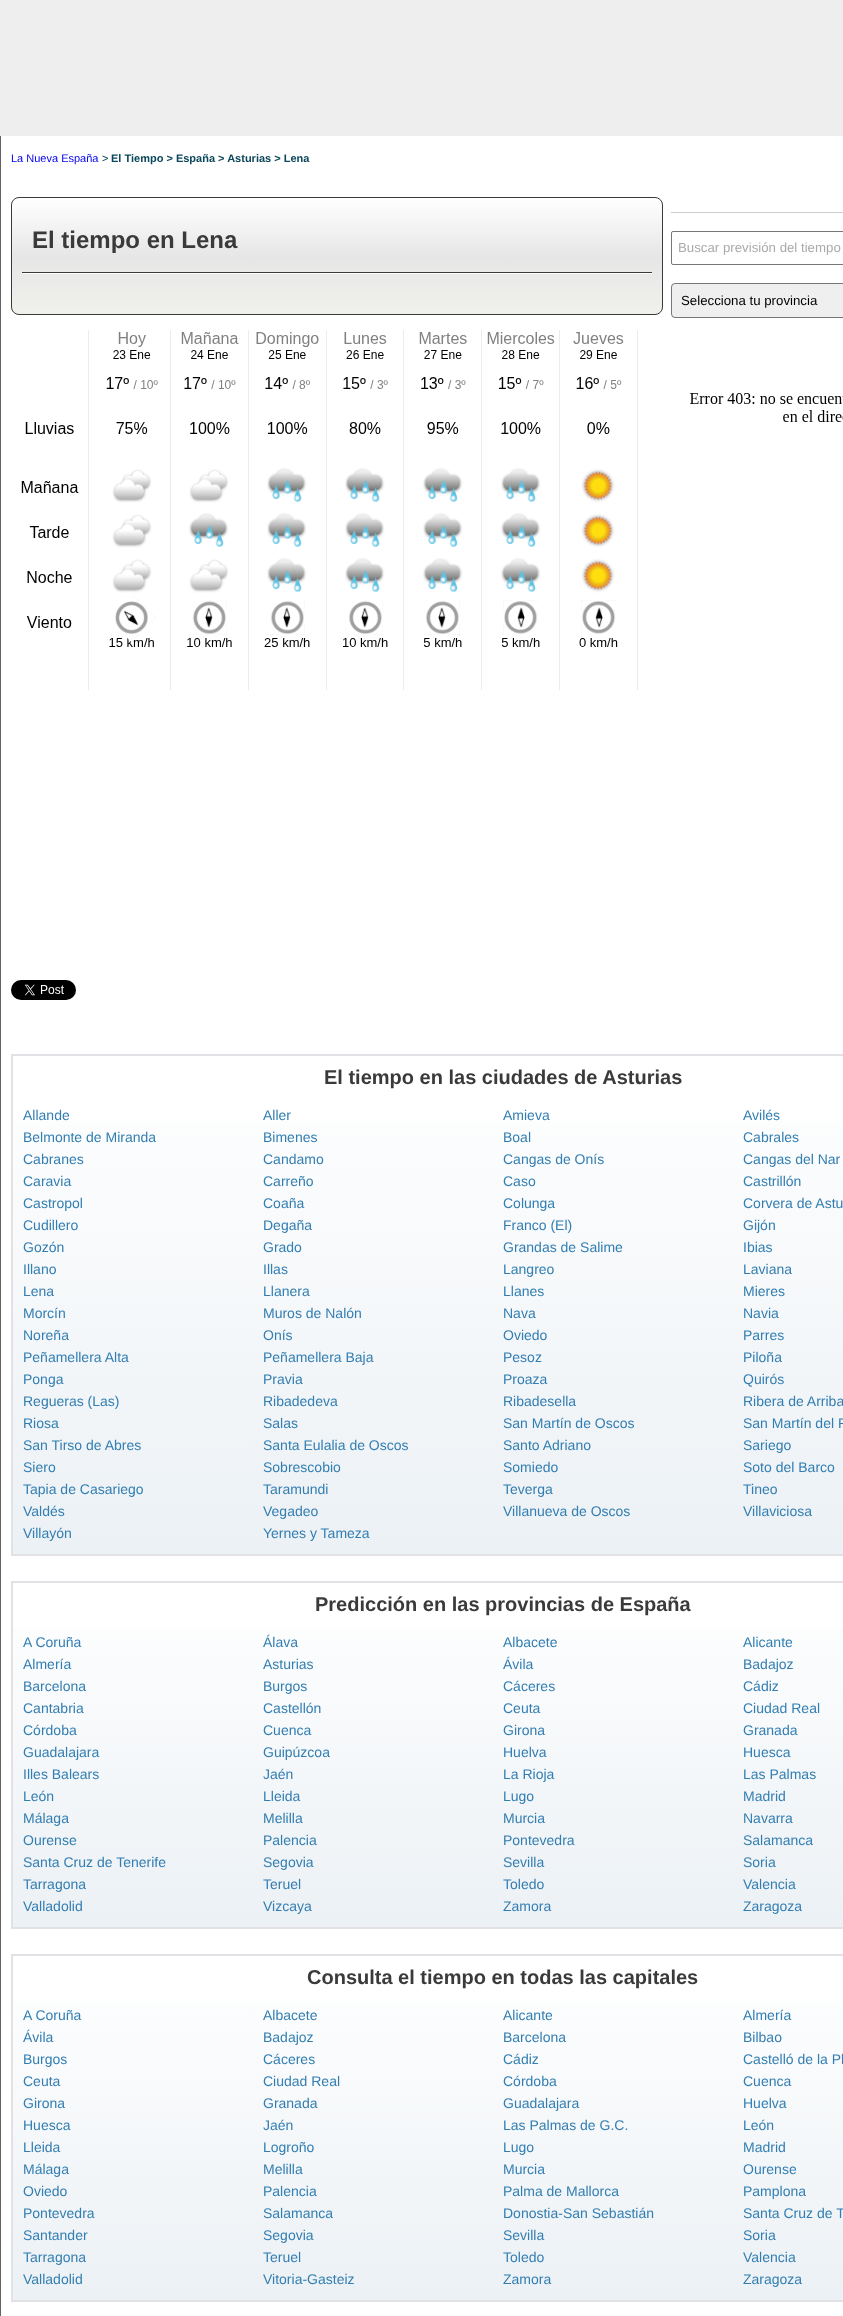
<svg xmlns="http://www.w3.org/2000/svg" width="843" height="2316">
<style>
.a{font:11px Liberation Sans;fill:#00e}
.b{font:11px Liberation Sans;fill:#0b475b}
.c{font:bold 11px Liberation Sans;fill:#0b475b}
.d{font:bold 24px Liberation Sans;fill:#3a3a3a}
.e{font:13.25px Liberation Sans;fill:#aaa}
.f{font:13.25px Liberation Sans;fill:#000}
.g{font:bold 20px Liberation Sans;fill:#3a3a3a}
.h{font:14px Liberation Sans;fill:#327eb2}
</style>
<defs>
<clipPath id="clip1"><rect x="11" y="197" width="652" height="118" rx="8"/></clipPath>
<linearGradient id="g1" gradientUnits="userSpaceOnUse" x1="337" y1="198" x2="337" y2="314"><stop offset="0" stop-color="#fff"/><stop offset="0.51" stop-color="#e6e6e6"/><stop offset="1" stop-color="#f0f1ec"/></linearGradient>
<linearGradient id="g2" gradientUnits="userSpaceOnUse" x1="503" y1="1056" x2="503" y2="1554"><stop offset="0" stop-color="#fff"/><stop offset="0.99" stop-color="#ecf1f5"/></linearGradient>
<linearGradient id="g3" gradientUnits="userSpaceOnUse" x1="503" y1="1583" x2="503" y2="1927"><stop offset="0" stop-color="#fff"/><stop offset="0.99" stop-color="#ecf1f5"/></linearGradient>
<linearGradient id="g4" gradientUnits="userSpaceOnUse" x1="503" y1="1956" x2="503" y2="2300"><stop offset="0" stop-color="#fff"/><stop offset="0.99" stop-color="#ecf1f5"/></linearGradient>
</defs>
<rect width="100%" height="100%" fill="#eee"/>
<path fill="#fff" d="M1 136h842v2180H1z"/>
<path fill="#626262" d="M0 136h1v2180H0z"/>
<g clip-path="url(#clip1)">
<path fill="url(#g1)" d="M11 198h652v116H11z"/>
</g>
<rect fill="none" stroke="#3a3a3a" x="11.5" y="197.5" width="651" height="117" rx="7.5"/>
<path fill="#3a3a3a" d="M22 272h630v1H22z"/>
<path fill="#fff" d="M22 273h630v1H22z"/>
<path fill="#ccc" d="M671 212h172v1H671z"/>
<rect fill="none" stroke="#767676" x="671.5" y="231.5" width="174" height="33" rx="1.5"/>
<rect fill="#efefef" stroke="#767676" x="671.5" y="283.5" width="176" height="34" rx="3.5"/>
<image href="1.png" x="690" y="393" width="153" height="29"/>
<image href="2.png" x="21" y="330" width="617" height="360"/>
<image href="3.png" x="11" y="980" width="65" height="20"/>
<path fill="url(#g2)" d="M13 1121h830v433H13z"/>
<path fill="none" stroke="#e2e1e6" stroke-width="2" d="M12 1055h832v500H12z"/>
<path fill="url(#g3)" d="M13 1628h830v299H13z"/>
<path fill="none" stroke="#e2e1e6" stroke-width="2" d="M12 1582h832v346H12z"/>
<path fill="url(#g4)" d="M13 2001h830v299H13z"/>
<path fill="none" stroke="#e2e1e6" stroke-width="2" d="M12 1955h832v346H12z"/>
<text class="a" x="11" y="162">La Nueva España</text>
<text class="b" x="102" y="162">&gt;</text>
<text class="c" x="111" y="162">El Tiempo &gt; España &gt; Asturias &gt; Lena</text>
<text class="d" x="32" y="248">El tiempo en Lena</text>
<text class="e" x="678" y="252">Buscar previsión del tiempo</text>
<text class="f" x="681" y="305">Selecciona tu provincia</text>
<text class="g" x="324" y="1084">El tiempo en las ciudades de Asturias</text>
<text class="h" x="23" y="1120">Allande</text>
<text class="h" x="263" y="1120">Aller</text>
<text class="h" x="503" y="1120">Amieva</text>
<text class="h" x="743" y="1120">Avilés</text>
<text class="h" x="23" y="1142">Belmonte de Miranda</text>
<text class="h" x="263" y="1142">Bimenes</text>
<text class="h" x="503" y="1142">Boal</text>
<text class="h" x="743" y="1142">Cabrales</text>
<text class="h" x="23" y="1164">Cabranes</text>
<text class="h" x="263" y="1164">Candamo</text>
<text class="h" x="503" y="1164">Cangas de Onís</text>
<text class="h" x="743" y="1164">Cangas del Nar</text>
<text class="h" x="23" y="1186">Caravia</text>
<text class="h" x="263" y="1186">Carreño</text>
<text class="h" x="503" y="1186">Caso</text>
<text class="h" x="743" y="1186">Castrillón</text>
<text class="h" x="23" y="1208">Castropol</text>
<text class="h" x="263" y="1208">Coaña</text>
<text class="h" x="503" y="1208">Colunga</text>
<text class="h" x="743" y="1208">Corvera de Astu</text>
<text class="h" x="23" y="1230">Cudillero</text>
<text class="h" x="263" y="1230">Degaña</text>
<text class="h" x="503" y="1230">Franco (El)</text>
<text class="h" x="743" y="1230">Gijón</text>
<text class="h" x="23" y="1252">Gozón</text>
<text class="h" x="263" y="1252">Grado</text>
<text class="h" x="503" y="1252">Grandas de Salime</text>
<text class="h" x="743" y="1252">Ibias</text>
<text class="h" x="23" y="1274">Illano</text>
<text class="h" x="263" y="1274">Illas</text>
<text class="h" x="503" y="1274">Langreo</text>
<text class="h" x="743" y="1274">Laviana</text>
<text class="h" x="23" y="1296">Lena</text>
<text class="h" x="263" y="1296">Llanera</text>
<text class="h" x="503" y="1296">Llanes</text>
<text class="h" x="743" y="1296">Mieres</text>
<text class="h" x="23" y="1318">Morcín</text>
<text class="h" x="263" y="1318">Muros de Nalón</text>
<text class="h" x="503" y="1318">Nava</text>
<text class="h" x="743" y="1318">Navia</text>
<text class="h" x="23" y="1340">Noreña</text>
<text class="h" x="263" y="1340">Onís</text>
<text class="h" x="503" y="1340">Oviedo</text>
<text class="h" x="743" y="1340">Parres</text>
<text class="h" x="23" y="1362">Peñamellera Alta</text>
<text class="h" x="263" y="1362">Peñamellera Baja</text>
<text class="h" x="503" y="1362">Pesoz</text>
<text class="h" x="743" y="1362">Piloña</text>
<text class="h" x="23" y="1384">Ponga</text>
<text class="h" x="263" y="1384">Pravia</text>
<text class="h" x="503" y="1384">Proaza</text>
<text class="h" x="743" y="1384">Quirós</text>
<text class="h" x="23" y="1406">Regueras (Las)</text>
<text class="h" x="263" y="1406">Ribadedeva</text>
<text class="h" x="503" y="1406">Ribadesella</text>
<text class="h" x="743" y="1406">Ribera de Arriba</text>
<text class="h" x="23" y="1428">Riosa</text>
<text class="h" x="263" y="1428">Salas</text>
<text class="h" x="503" y="1428">San Martín de Oscos</text>
<text class="h" x="743" y="1428">San Martín del R</text>
<text class="h" x="23" y="1450">San Tirso de Abres</text>
<text class="h" x="263" y="1450">Santa Eulalia de Oscos</text>
<text class="h" x="503" y="1450">Santo Adriano</text>
<text class="h" x="743" y="1450">Sariego</text>
<text class="h" x="23" y="1472">Siero</text>
<text class="h" x="263" y="1472">Sobrescobio</text>
<text class="h" x="503" y="1472">Somiedo</text>
<text class="h" x="743" y="1472">Soto del Barco</text>
<text class="h" x="23" y="1494">Tapia de Casariego</text>
<text class="h" x="263" y="1494">Taramundi</text>
<text class="h" x="503" y="1494">Teverga</text>
<text class="h" x="743" y="1494">Tineo</text>
<text class="h" x="23" y="1516">Valdés</text>
<text class="h" x="263" y="1516">Vegadeo</text>
<text class="h" x="503" y="1516">Villanueva de Oscos</text>
<text class="h" x="743" y="1516">Villaviciosa</text>
<text class="h" x="23" y="1538">Villayón</text>
<text class="h" x="263" y="1538">Yernes y Tameza</text>
<text class="g" x="315" y="1611">Predicción en las provincias de España</text>
<text class="h" x="23" y="1647">A Coruña</text>
<text class="h" x="263" y="1647">Álava</text>
<text class="h" x="503" y="1647">Albacete</text>
<text class="h" x="743" y="1647">Alicante</text>
<text class="h" x="23" y="1669">Almería</text>
<text class="h" x="263" y="1669">Asturias</text>
<text class="h" x="503" y="1669">Ávila</text>
<text class="h" x="743" y="1669">Badajoz</text>
<text class="h" x="23" y="1691">Barcelona</text>
<text class="h" x="263" y="1691">Burgos</text>
<text class="h" x="503" y="1691">Cáceres</text>
<text class="h" x="743" y="1691">Cádiz</text>
<text class="h" x="23" y="1713">Cantabria</text>
<text class="h" x="263" y="1713">Castellón</text>
<text class="h" x="503" y="1713">Ceuta</text>
<text class="h" x="743" y="1713">Ciudad Real</text>
<text class="h" x="23" y="1735">Córdoba</text>
<text class="h" x="263" y="1735">Cuenca</text>
<text class="h" x="503" y="1735">Girona</text>
<text class="h" x="743" y="1735">Granada</text>
<text class="h" x="23" y="1757">Guadalajara</text>
<text class="h" x="263" y="1757">Guipúzcoa</text>
<text class="h" x="503" y="1757">Huelva</text>
<text class="h" x="743" y="1757">Huesca</text>
<text class="h" x="23" y="1779">Illes Balears</text>
<text class="h" x="263" y="1779">Jaén</text>
<text class="h" x="503" y="1779">La Rioja</text>
<text class="h" x="743" y="1779">Las Palmas</text>
<text class="h" x="23" y="1801">León</text>
<text class="h" x="263" y="1801">Lleida</text>
<text class="h" x="503" y="1801">Lugo</text>
<text class="h" x="743" y="1801">Madrid</text>
<text class="h" x="23" y="1823">Málaga</text>
<text class="h" x="263" y="1823">Melilla</text>
<text class="h" x="503" y="1823">Murcia</text>
<text class="h" x="743" y="1823">Navarra</text>
<text class="h" x="23" y="1845">Ourense</text>
<text class="h" x="263" y="1845">Palencia</text>
<text class="h" x="503" y="1845">Pontevedra</text>
<text class="h" x="743" y="1845">Salamanca</text>
<text class="h" x="23" y="1867">Santa Cruz de Tenerife</text>
<text class="h" x="263" y="1867">Segovia</text>
<text class="h" x="503" y="1867">Sevilla</text>
<text class="h" x="743" y="1867">Soria</text>
<text class="h" x="23" y="1889">Tarragona</text>
<text class="h" x="263" y="1889">Teruel</text>
<text class="h" x="503" y="1889">Toledo</text>
<text class="h" x="743" y="1889">Valencia</text>
<text class="h" x="23" y="1911">Valladolid</text>
<text class="h" x="263" y="1911">Vizcaya</text>
<text class="h" x="503" y="1911">Zamora</text>
<text class="h" x="743" y="1911">Zaragoza</text>
<text class="g" x="307" y="1984">Consulta el tiempo en todas las capitales</text>
<text class="h" x="23" y="2020">A Coruña</text>
<text class="h" x="263" y="2020">Albacete</text>
<text class="h" x="503" y="2020">Alicante</text>
<text class="h" x="743" y="2020">Almería</text>
<text class="h" x="23" y="2042">Ávila</text>
<text class="h" x="263" y="2042">Badajoz</text>
<text class="h" x="503" y="2042">Barcelona</text>
<text class="h" x="743" y="2042">Bilbao</text>
<text class="h" x="23" y="2064">Burgos</text>
<text class="h" x="263" y="2064">Cáceres</text>
<text class="h" x="503" y="2064">Cádiz</text>
<text class="h" x="743" y="2064">Castelló de la Pl</text>
<text class="h" x="23" y="2086">Ceuta</text>
<text class="h" x="263" y="2086">Ciudad Real</text>
<text class="h" x="503" y="2086">Córdoba</text>
<text class="h" x="743" y="2086">Cuenca</text>
<text class="h" x="23" y="2108">Girona</text>
<text class="h" x="263" y="2108">Granada</text>
<text class="h" x="503" y="2108">Guadalajara</text>
<text class="h" x="743" y="2108">Huelva</text>
<text class="h" x="23" y="2130">Huesca</text>
<text class="h" x="263" y="2130">Jaén</text>
<text class="h" x="503" y="2130">Las Palmas de G.C.</text>
<text class="h" x="743" y="2130">León</text>
<text class="h" x="23" y="2152">Lleida</text>
<text class="h" x="263" y="2152">Logroño</text>
<text class="h" x="503" y="2152">Lugo</text>
<text class="h" x="743" y="2152">Madrid</text>
<text class="h" x="23" y="2174">Málaga</text>
<text class="h" x="263" y="2174">Melilla</text>
<text class="h" x="503" y="2174">Murcia</text>
<text class="h" x="743" y="2174">Ourense</text>
<text class="h" x="23" y="2196">Oviedo</text>
<text class="h" x="263" y="2196">Palencia</text>
<text class="h" x="503" y="2196">Palma de Mallorca</text>
<text class="h" x="743" y="2196">Pamplona</text>
<text class="h" x="23" y="2218">Pontevedra</text>
<text class="h" x="263" y="2218">Salamanca</text>
<text class="h" x="503" y="2218">Donostia-San Sebastián</text>
<text class="h" x="743" y="2218">Santa Cruz de T</text>
<text class="h" x="23" y="2240">Santander</text>
<text class="h" x="263" y="2240">Segovia</text>
<text class="h" x="503" y="2240">Sevilla</text>
<text class="h" x="743" y="2240">Soria</text>
<text class="h" x="23" y="2262">Tarragona</text>
<text class="h" x="263" y="2262">Teruel</text>
<text class="h" x="503" y="2262">Toledo</text>
<text class="h" x="743" y="2262">Valencia</text>
<text class="h" x="23" y="2284">Valladolid</text>
<text class="h" x="263" y="2284">Vitoria-Gasteiz</text>
<text class="h" x="503" y="2284">Zamora</text>
<text class="h" x="743" y="2284">Zaragoza</text>
</svg>
